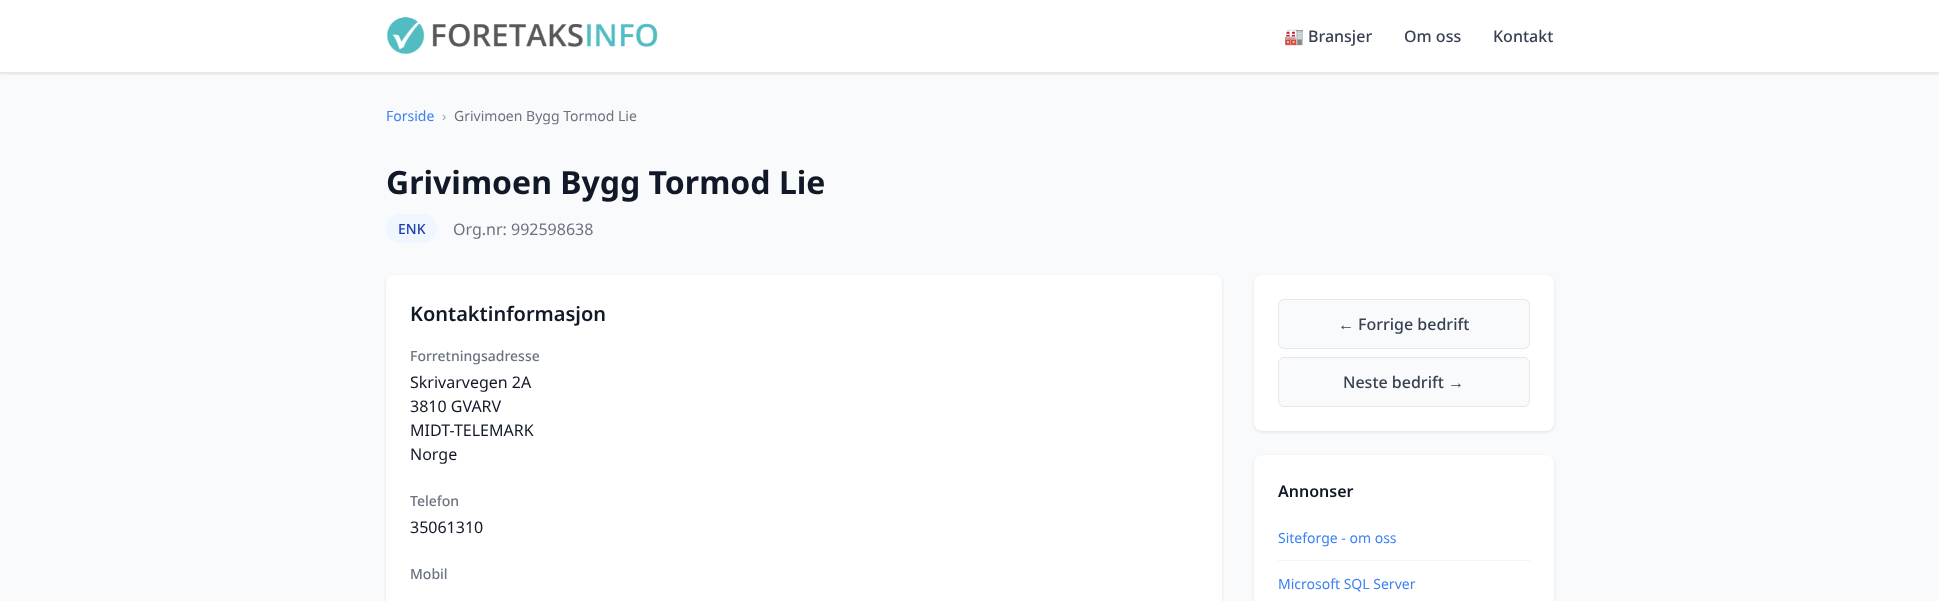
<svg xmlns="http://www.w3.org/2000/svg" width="1939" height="601">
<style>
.a{font:16px Noto Color Emoji;fill:#374151}
.b{font:500 16px Noto Sans;fill:#374151}
.c{font:14px Noto Sans;fill:#3b82f6}
.d{font:14px Noto Sans;fill:#9ca3af}
.e{font:14px Noto Sans;fill:#6b7280}
.f{font:bold 32px Noto Sans;fill:#111827}
.g{font:500 14px Noto Sans;fill:#1e40af}
.h{font:16px Noto Sans;fill:#6b7280}
.i{font:600 20px Noto Sans;fill:#111827}
.j{font:500 14px Noto Sans;fill:#6b7280}
.k{font:16px Noto Sans;fill:#111827}
.l{font:16px Liberation Sans;fill:#374151}
.m{font:600 16px Noto Sans;fill:#111827}
</style>
<defs>
<clipPath id="clip1"><path d="M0 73h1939v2H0z"/></clipPath>
</defs>
<rect width="100%" height="100%" fill="#fff"/>
<path fill="#f9fafb" d="M0 73h1939v528H0z"/>
<g clip-path="url(#clip1)">
<path fill="#0000001a" filter="blur(1.5px)" d="M0 1h1939v73H0z"/>
</g>
<path fill="#e5e7eb" d="M0 72h1939v1H0z"/>
<image href="1.png" x="387" y="17" width="271" height="38"/>
<rect fill="#eff6ff" x="386" y="214" width="51" height="29" rx="14.5"/>
<rect fill="#0000001a" filter="blur(1.5px)" x="386" y="276" width="836" height="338" rx="8"/>
<rect fill="#fff" x="386" y="275" width="836" height="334" rx="8"/>
<rect fill="#0000001a" filter="blur(1.5px)" x="1254" y="276" width="300" height="156" rx="8"/>
<rect fill="#fff" x="1254" y="275" width="300" height="156" rx="8"/>
<rect fill="#f9fafb" stroke="#e5e7eb" x="1278.5" y="299.5" width="251" height="49" rx="5.5"/>
<rect fill="#f9fafb" stroke="#e5e7eb" x="1278.5" y="357.5" width="251" height="49" rx="5.5"/>
<rect fill="#0000001a" filter="blur(1.5px)" x="1254" y="456" width="300" height="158" rx="8"/>
<rect fill="#fff" x="1254" y="455" width="300" height="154" rx="8"/>
<path fill="#f3f4f6" d="M1278 560h252v1H1278z"/>
<text class="a" x="1284" y="42">🏭</text>
<text class="b" x="1308" y="42">Bransjer</text>
<text class="b" x="1404" y="42">Om oss</text>
<text class="b" x="1493" y="42">Kontakt</text>
<text class="c" x="386" y="121">Forside</text>
<text class="d" x="442" y="121">›</text>
<text class="e" x="454" y="121">Grivimoen Bygg Tormod Lie</text>
<text class="f" x="386" y="194">Grivimoen Bygg Tormod Lie</text>
<text class="g" x="398" y="234">ENK</text>
<text class="h" x="453" y="235">Org.nr: 992598638</text>
<text class="i" x="410" y="321">Kontaktinformasjon</text>
<text class="j" x="410" y="361">Forretningsadresse</text>
<text class="k" x="410" y="388">Skrivarvegen 2A</text>
<text class="k" x="410" y="412">3810 GVARV</text>
<text class="k" x="410" y="436">MIDT-TELEMARK</text>
<text class="k" x="410" y="460">Norge</text>
<text class="j" x="410" y="506">Telefon</text>
<text class="k" x="410" y="533">35061310</text>
<text class="j" x="410" y="579">Mobil</text>
<text class="l" x="1338" y="330">←</text>
<text class="b" x="1358" y="330">Forrige bedrift</text>
<text class="b" x="1343" y="388">Neste bedrift</text>
<text class="l" x="1448" y="388">→</text>
<text class="m" x="1278" y="497">Annonser</text>
<text class="c" x="1278" y="543">Siteforge - om oss</text>
<text class="c" x="1278" y="589">Microsoft SQL Server</text>
</svg>
